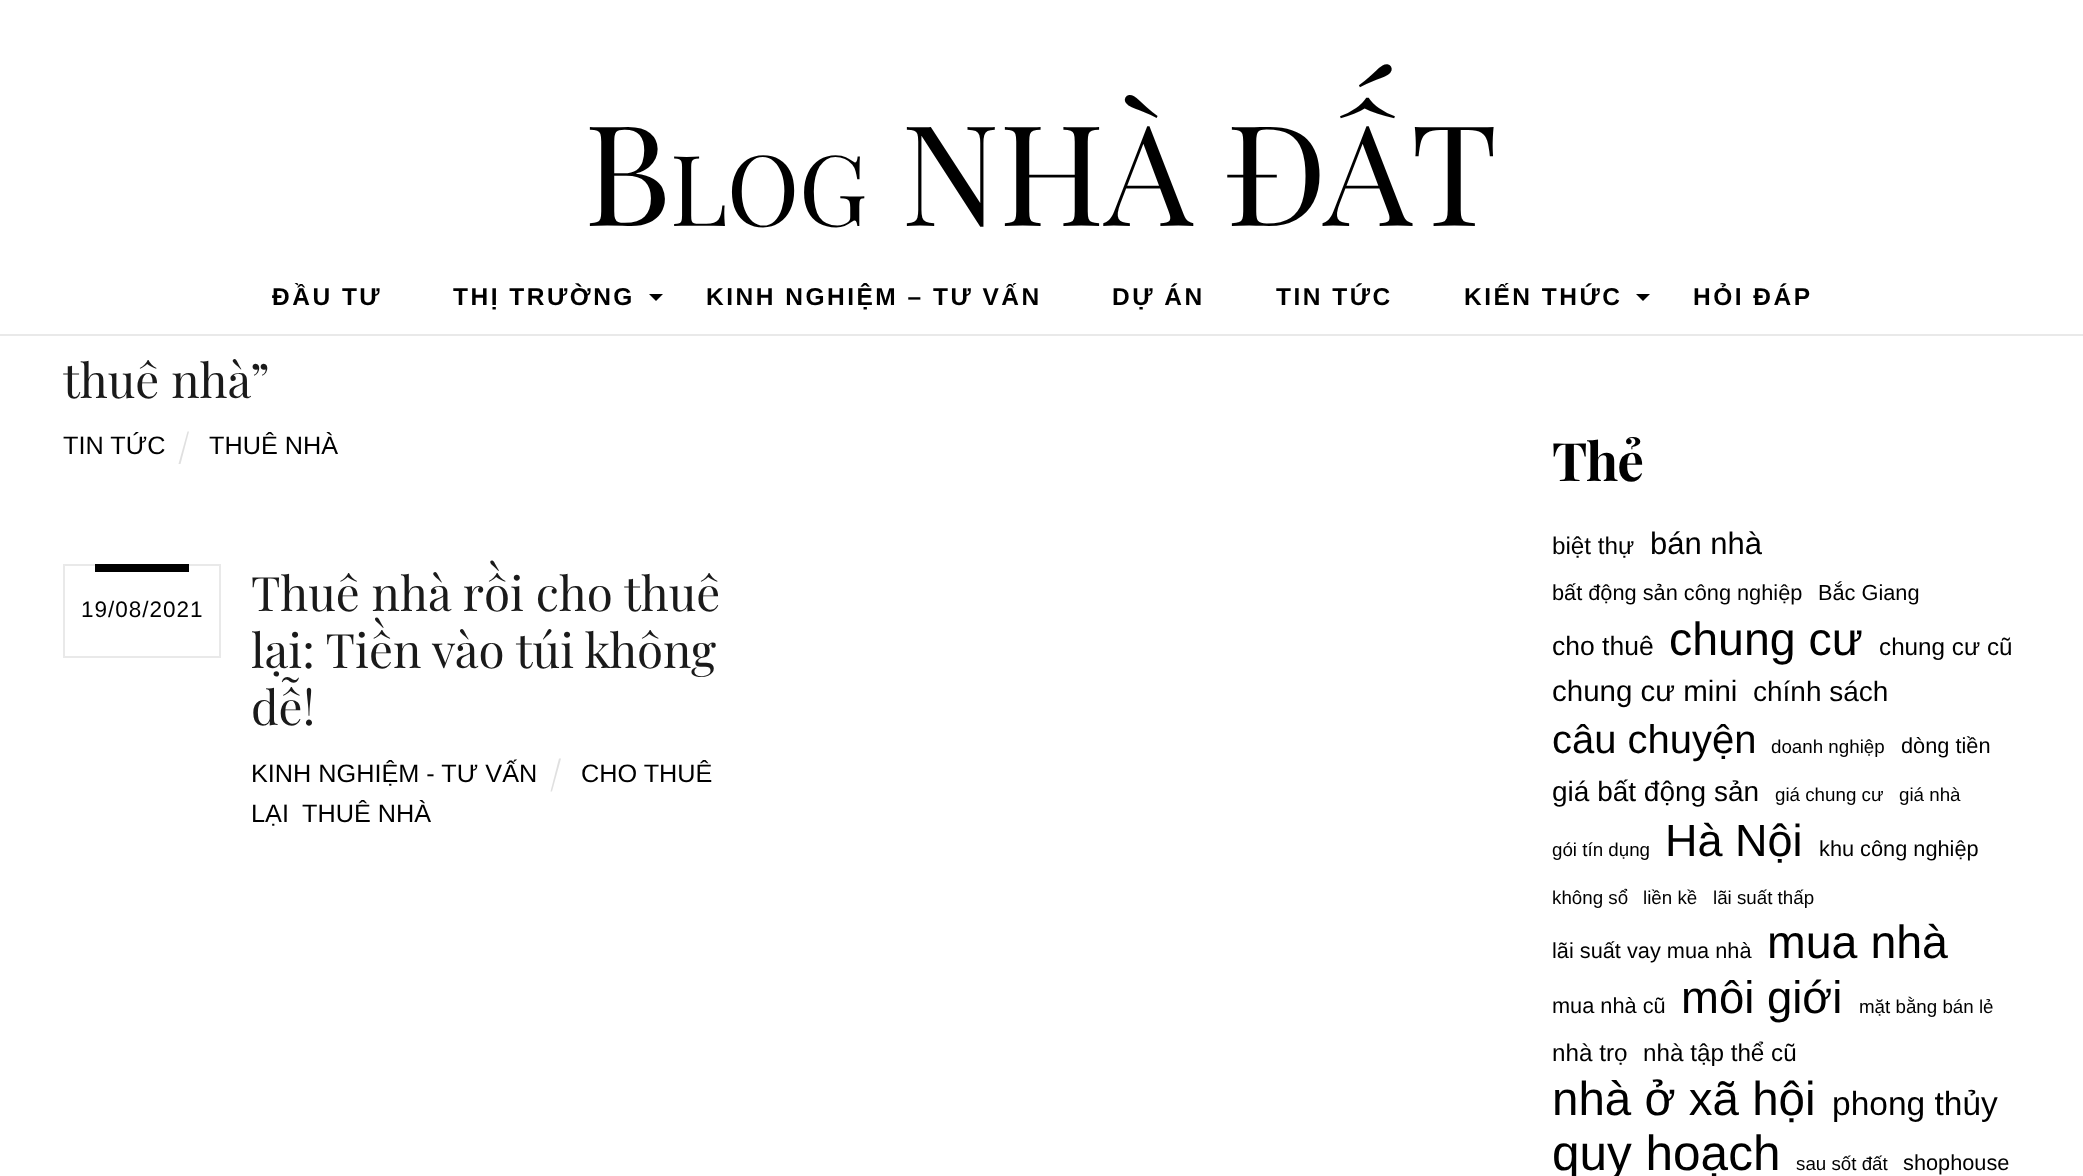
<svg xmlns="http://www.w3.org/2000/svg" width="2083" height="1176">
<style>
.a{font:140px Playfair Display;letter-spacing:-0.75px;fill:#000}
.b{font:98px Playfair Display;letter-spacing:-0.75px;fill:#000}
.c{font:bold 24.5px Liberation Sans;letter-spacing:2.5px;fill:#000}
.d{font:47.5px Playfair Display;fill:#1a1a1a}
.e{font:25.25px Liberation Sans;fill:#000}
.f{font:22.5px Liberation Sans;letter-spacing:1px;fill:#000}
.g{font:bold 53px Playfair Display;letter-spacing:-1px;fill:#000}
.h{font:24.25px Liberation Sans;fill:#000}
.i{font:31px Liberation Sans;fill:#000}
.j{font:21.75px Liberation Sans;fill:#000}
.k{font:26.5px Liberation Sans;fill:#000}
.l{font:46.5px Liberation Sans;fill:#000}
.m{font:29.5px Liberation Sans;fill:#000}
.n{font:28px Liberation Sans;fill:#000}
.o{font:40px Liberation Sans;fill:#000}
.p{font:18.75px Liberation Sans;fill:#000}
.q{font:45px Liberation Sans;fill:#000}
.r{font:45.5px Liberation Sans;fill:#000}
.s{font:47.5px Liberation Sans;fill:#000}
.t{font:33.5px Liberation Sans;fill:#000}
.u{font:49.5px Liberation Sans;fill:#000}
</style>
<rect width="100%" height="100%" fill="#fff"/>
<path fill="#e9e9e9" d="M0 334h2083v2H0z"/>
<path fill="#000" d="M649 294h14l-7 7z"/>
<path fill="#000" d="M1636 294h14l-7 7z"/>
<path fill="#e0e0e0" d="M187.5 431.5h1.5l-8.5 32.5h-2z"/>
<path fill="none" stroke="#e9e9e9" stroke-width="2" d="M64 565h156v92H64z"/>
<path fill="#000" d="M95 564h94v8H95z"/>
<path fill="#e0e0e0" d="M559 758.5h2l-9 33h-1.5z"/>
<text class="a" x="584" y="226">B</text>
<text class="b" x="670" y="226">LOG</text>
<text class="a" x="901" y="226">NHÀ ĐẤT</text>
<text class="c" x="272" y="305">ĐẦU TƯ</text>
<text class="c" x="453" y="305">THỊ TRƯỜNG</text>
<text class="c" x="706" y="305">KINH NGHIỆM – TƯ VẤN</text>
<text class="c" x="1112" y="305">DỰ ÁN</text>
<text class="c" x="1276" y="305">TIN TỨC</text>
<text class="c" x="1464" y="305">KIẾN THỨC</text>
<text class="c" x="1693" y="305">HỎI ĐÁP</text>
<text class="d" x="63" y="398">thuê nhà”</text>
<text class="e" x="63" y="454">TIN TỨC</text>
<text class="e" x="209" y="454">THUÊ NHÀ</text>
<text class="f" x="81" y="617">19/08/2021</text>
<text class="d" x="251" y="611">Thuê nhà rồi cho thuê</text>
<text class="d" x="251" y="668">lại: Tiền vào túi không</text>
<text class="d" x="251" y="725">dễ!</text>
<text class="e" x="251" y="782">KINH NGHIỆM - TƯ VẤN</text>
<text class="e" x="581" y="782">CHO THUÊ</text>
<text class="e" x="251" y="822">LẠI</text>
<text class="e" x="302" y="822">THUÊ NHÀ</text>
<text class="g" x="1552" y="481">Thẻ</text>
<text class="h" x="1552" y="554">biệt thự</text>
<text class="i" x="1650" y="554">bán nhà</text>
<text class="j" x="1552" y="600">bất động sản công nghiệp</text>
<text class="j" x="1818" y="600">Bắc Giang</text>
<text class="k" x="1552" y="655">cho thuê</text>
<text class="l" x="1669" y="655">chung cư</text>
<text class="h" x="1879" y="655">chung cư cũ</text>
<text class="m" x="1552" y="701">chung cư mini</text>
<text class="n" x="1753" y="701">chính sách</text>
<text class="o" x="1552" y="753">câu chuyện</text>
<text class="p" x="1771" y="753">doanh nghiệp</text>
<text class="j" x="1901" y="753">dòng tiền</text>
<text class="n" x="1552" y="801">giá bất động sản</text>
<text class="p" x="1775" y="801">giá chung cư</text>
<text class="p" x="1899" y="801">giá nhà</text>
<text class="p" x="1552" y="856">gói tín dụng</text>
<text class="q" x="1665" y="856">Hà Nội</text>
<text class="j" x="1819" y="856">khu công nghiệp</text>
<text class="p" x="1552" y="904">không sổ</text>
<text class="p" x="1643" y="904">liền kề</text>
<text class="p" x="1713" y="904">lãi suất thấp</text>
<text class="j" x="1552" y="958">lãi suất vay mua nhà</text>
<text class="l" x="1767" y="958">mua nhà</text>
<text class="j" x="1552" y="1013">mua nhà cũ</text>
<text class="r" x="1681" y="1013">môi giới</text>
<text class="p" x="1859" y="1013">mặt bằng bán lẻ</text>
<text class="h" x="1552" y="1061">nhà trọ</text>
<text class="h" x="1643" y="1061">nhà tập thể cũ</text>
<text class="s" x="1552" y="1115">nhà ở xã hội</text>
<text class="t" x="1832" y="1115">phong thủy</text>
<text class="u" x="1552" y="1170">quy hoạch</text>
<text class="p" x="1796" y="1170">sau sốt đất</text>
<text class="j" x="1903" y="1170">shophouse</text>
<path fill="#fff" d="M1993 1110.5l18.5-18.5v2.5l-16 16z"/>
</svg>
